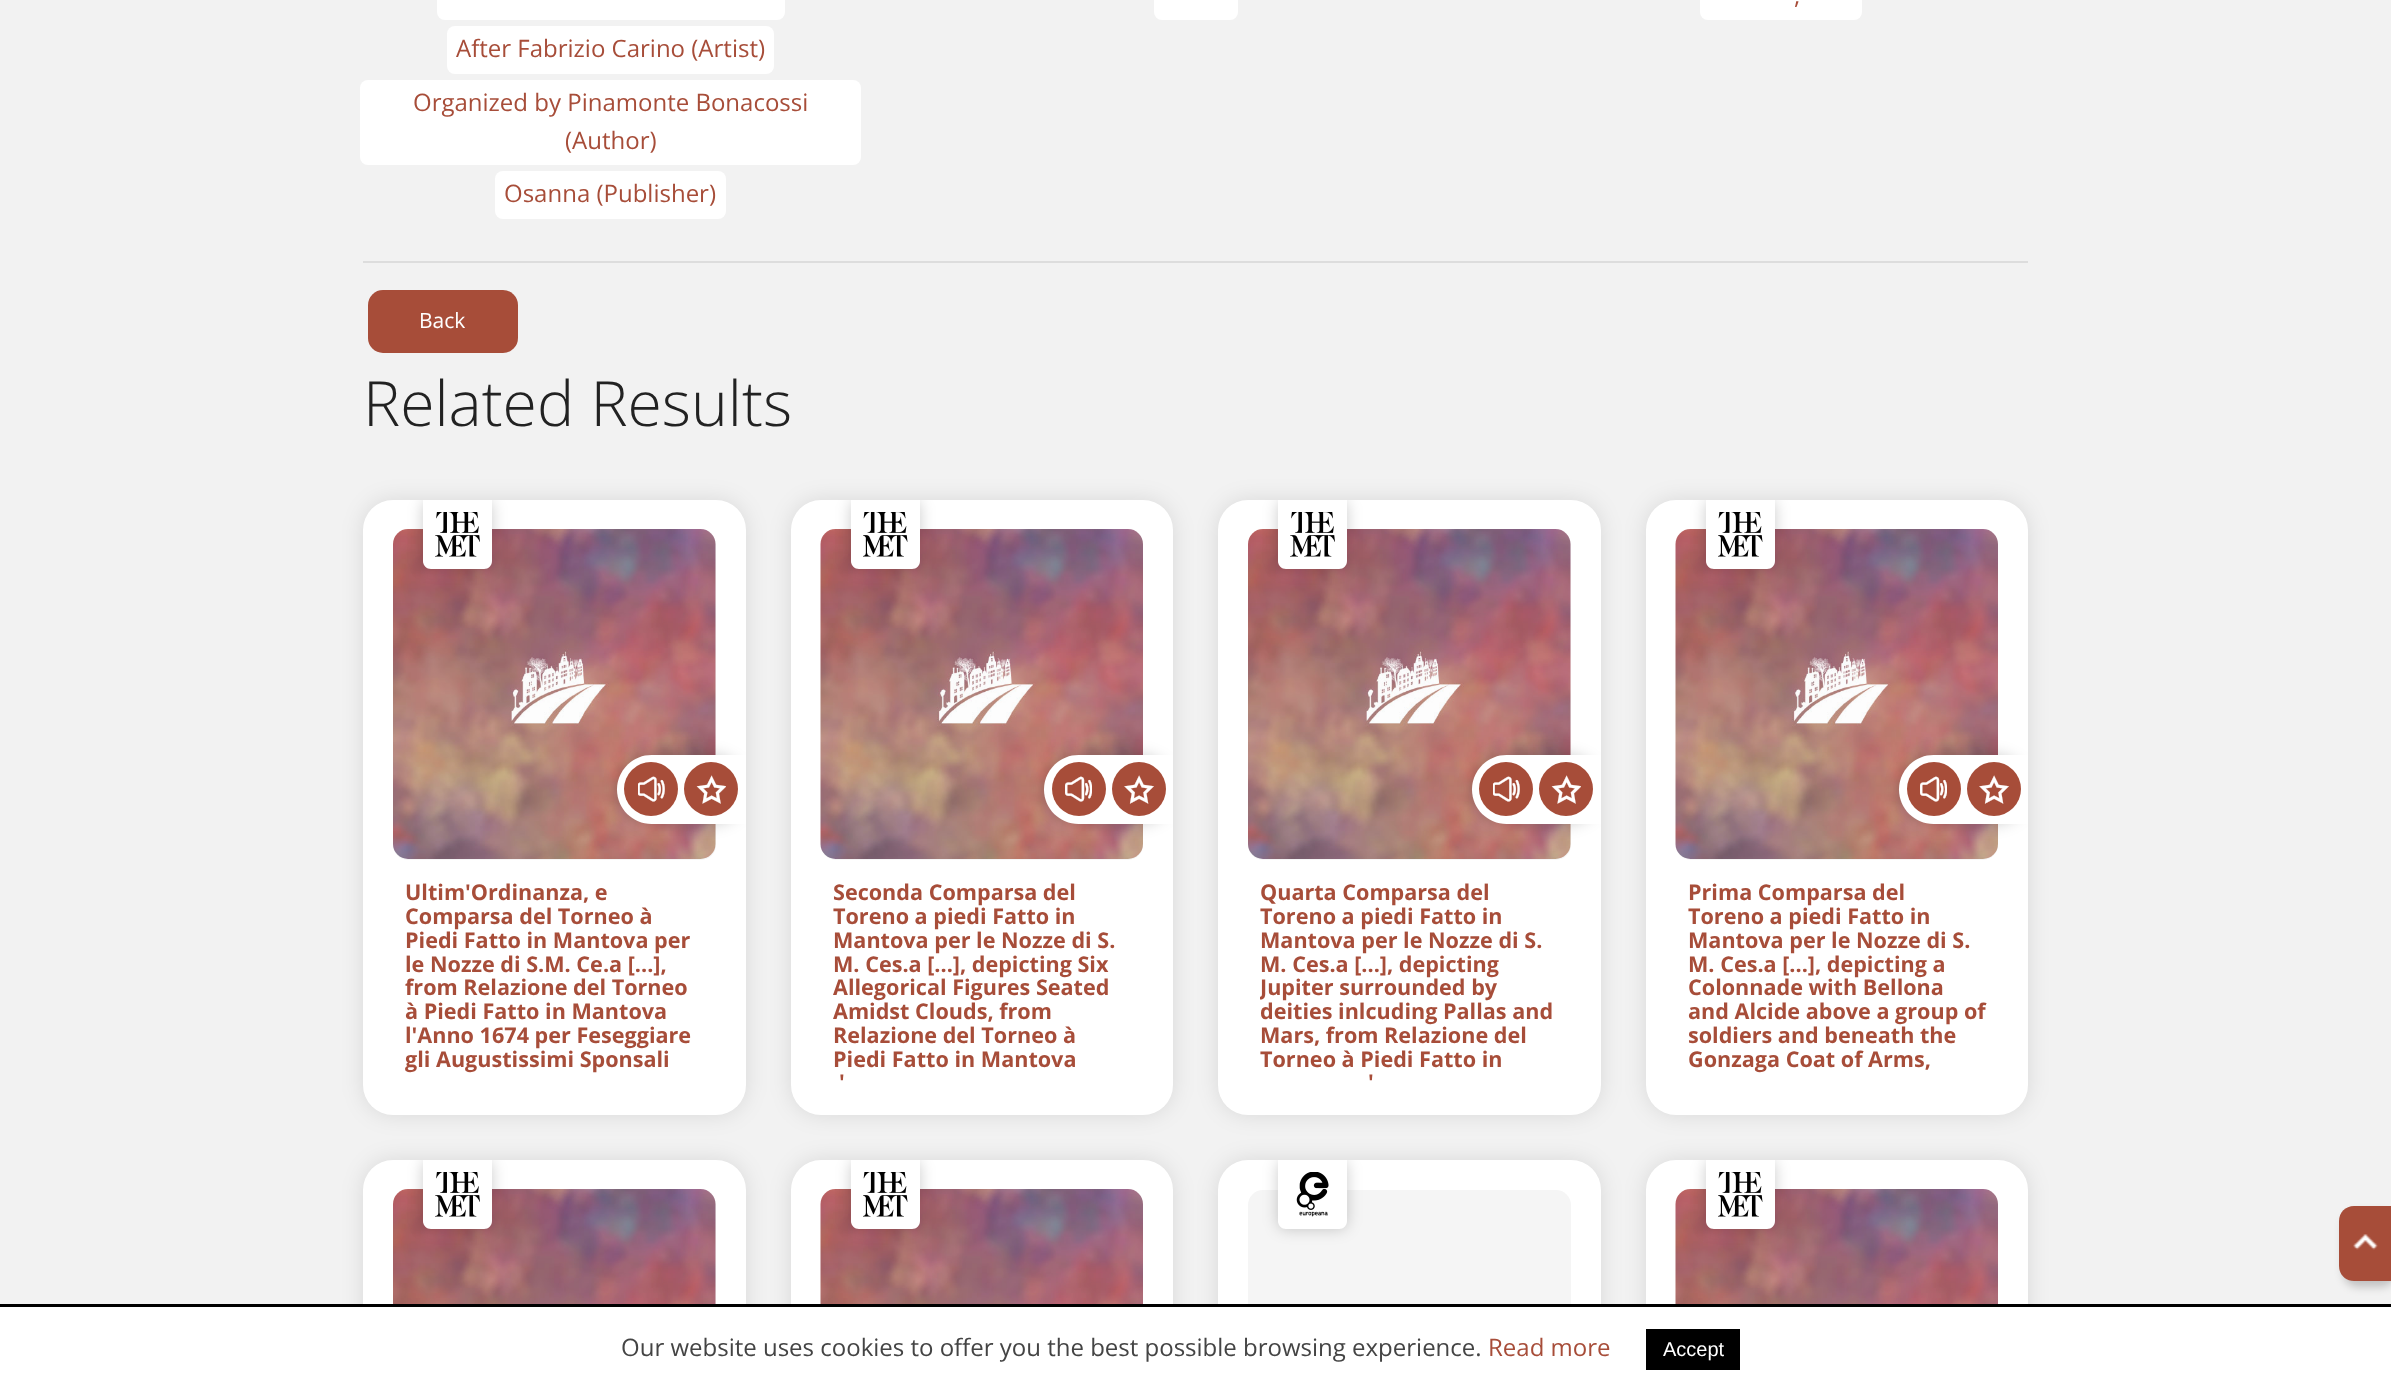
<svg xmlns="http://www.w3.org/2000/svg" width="2391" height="1391">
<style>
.a{font:24px Open Sans;fill:#a74d39}
.b{font:21px Open Sans;fill:#fff}
.c{font:300 62.5px Open Sans;fill:#222}
.d{font:bold 21.6px Open Sans;fill:#a74d39}
.e{font:24px Open Sans;fill:#444}
.f{font:20px Liberation Sans;fill:#fff}
</style>
<defs>
<clipPath id="clip1"><rect x="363" y="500" width="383" height="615" rx="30"/></clipPath>
<clipPath id="clip2"><rect x="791" y="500" width="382" height="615" rx="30"/></clipPath>
<clipPath id="clip3"><rect x="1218" y="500" width="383" height="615" rx="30"/></clipPath>
<clipPath id="clip4"><rect x="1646" y="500" width="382" height="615" rx="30"/></clipPath>
<clipPath id="clip5"><rect x="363" y="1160" width="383" height="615" rx="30"/></clipPath>
<clipPath id="clip6"><rect x="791" y="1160" width="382" height="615" rx="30"/></clipPath>
<clipPath id="clip7"><rect x="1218" y="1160" width="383" height="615" rx="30"/></clipPath>
<clipPath id="clip8"><rect x="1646" y="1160" width="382" height="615" rx="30"/></clipPath>
<clipPath id="clip9"><path d="M1260 881h299v204H1260z"/></clipPath>
</defs>
<rect width="100%" height="100%" fill="#f2f2f2"/>
<rect fill="#fff" x="1154" y="-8" width="84" height="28" rx="8"/>
<rect fill="#fff" x="1700" y="-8" width="162" height="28" rx="8"/>
<rect fill="#fff" x="437" y="-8" width="348" height="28" rx="8"/>
<rect fill="#fff" x="447" y="26" width="327" height="48" rx="8"/>
<rect fill="#fff" x="360" y="80" width="501" height="85" rx="8"/>
<rect fill="#fff" x="495" y="171" width="231" height="48" rx="8"/>
<path fill="#ddd" d="M363 261h1665v2H363z"/>
<rect fill="#a74d39" x="368" y="290" width="150" height="63" rx="15"/>
<rect fill="#0000001a" filter="blur(11px)" x="363" y="500" width="383" height="615" rx="30"/>
<rect fill="#fff" x="363" y="500" width="383" height="615" rx="30"/>
<rect fill="#f5f5f5" x="393" y="530" width="323" height="330" rx="15"/>
<image href="2.png" x="393" y="529" width="323" height="330"/>
<g clip-path="url(#clip1)">
<rect fill="#00000033" filter="blur(7.5px)" x="423" y="500" width="69" height="69" rx="8"/>
</g>
<path fill="#fff" d="M423 500h69v61c0 4.5-3.5 8-8 8h-53c-4.5 0-8-3.5-8-8z"/>
<image href="1.png" x="435" y="512" width="45" height="45"/>
<g clip-path="url(#clip1)">
<rect fill="#00000033" filter="blur(7.5px)" x="617" y="755" width="129" height="69" rx="34.5"/>
</g>
<path fill="#fff" d="M651.5 755h94.5v69h-94.5c-19 0-34.5-15.5-34.5-34.5c0-19 15.5-34.5 34.5-34.5z"/>
<circle fill="#a74d39" cx="651" cy="789" r="27"/>
<image href="3.png" x="638" y="776" width="27" height="26"/>
<circle fill="#a74d39" cx="711" cy="789" r="27"/>
<image href="4.png" x="696" y="775" width="30" height="29"/>
<rect fill="#0000001a" filter="blur(11px)" x="791" y="500" width="382" height="615" rx="30"/>
<rect fill="#fff" x="791" y="500" width="382" height="615" rx="30"/>
<rect fill="#f5f5f5" x="821" y="530" width="322" height="330" rx="15"/>
<image href="6.png" x="820" y="529" width="323" height="330"/>
<g clip-path="url(#clip2)">
<rect fill="#00000033" filter="blur(7.5px)" x="851" y="500" width="69" height="69" rx="8"/>
</g>
<path fill="#fff" d="M851 500h69v61c0 4.5-3.5 8-8 8h-53c-4.5 0-8-3.5-8-8z"/>
<image href="5.png" x="863" y="512" width="45" height="45"/>
<g clip-path="url(#clip2)">
<rect fill="#00000033" filter="blur(7.5px)" x="1044" y="755" width="129" height="69" rx="34.5"/>
</g>
<path fill="#fff" d="M1078.5 755h94.5v69h-94.5c-19 0-34.5-15.5-34.5-34.5c0-19 15.5-34.5 34.5-34.5z"/>
<circle fill="#a74d39" cx="1079" cy="789" r="27"/>
<image href="7.png" x="1065" y="776" width="27" height="26"/>
<circle fill="#a74d39" cx="1139" cy="789" r="27"/>
<image href="8.png" x="1124" y="775" width="30" height="29"/>
<rect fill="#0000001a" filter="blur(11px)" x="1218" y="500" width="383" height="615" rx="30"/>
<rect fill="#fff" x="1218" y="500" width="383" height="615" rx="30"/>
<rect fill="#f5f5f5" x="1248" y="530" width="323" height="330" rx="15"/>
<image href="2.png" x="1248" y="529" width="323" height="330"/>
<g clip-path="url(#clip3)">
<rect fill="#00000033" filter="blur(7.5px)" x="1278" y="500" width="69" height="69" rx="8"/>
</g>
<path fill="#fff" d="M1278 500h69v61c0 4.5-3.5 8-8 8h-53c-4.5 0-8-3.5-8-8z"/>
<image href="1.png" x="1290" y="512" width="45" height="45"/>
<g clip-path="url(#clip3)">
<rect fill="#00000033" filter="blur(7.5px)" x="1472" y="755" width="129" height="69" rx="34.5"/>
</g>
<path fill="#fff" d="M1506.5 755h94.5v69h-94.5c-19 0-34.5-15.5-34.5-34.5c0-19 15.5-34.5 34.5-34.5z"/>
<circle fill="#a74d39" cx="1506" cy="789" r="27"/>
<image href="3.png" x="1493" y="776" width="27" height="26"/>
<circle fill="#a74d39" cx="1566" cy="789" r="27"/>
<image href="4.png" x="1551" y="775" width="30" height="29"/>
<rect fill="#0000001a" filter="blur(11px)" x="1646" y="500" width="382" height="615" rx="30"/>
<rect fill="#fff" x="1646" y="500" width="382" height="615" rx="30"/>
<rect fill="#f5f5f5" x="1676" y="530" width="322" height="330" rx="15"/>
<image href="9.png" x="1675" y="529" width="323" height="330"/>
<g clip-path="url(#clip4)">
<rect fill="#00000033" filter="blur(7.5px)" x="1706" y="500" width="69" height="69" rx="8"/>
</g>
<path fill="#fff" d="M1706 500h69v61c0 4.5-3.5 8-8 8h-53c-4.5 0-8-3.5-8-8z"/>
<image href="5.png" x="1718" y="512" width="45" height="45"/>
<g clip-path="url(#clip4)">
<rect fill="#00000033" filter="blur(7.5px)" x="1899" y="755" width="129" height="69" rx="34.5"/>
</g>
<path fill="#fff" d="M1933.5 755h94.5v69h-94.5c-19 0-34.5-15.5-34.5-34.5c0-19 15.5-34.5 34.5-34.5z"/>
<circle fill="#a74d39" cx="1934" cy="789" r="27"/>
<image href="7.png" x="1920" y="776" width="27" height="26"/>
<circle fill="#a74d39" cx="1994" cy="789" r="27"/>
<image href="8.png" x="1979" y="775" width="30" height="29"/>
<rect fill="#0000001a" filter="blur(11px)" x="363" y="1160" width="383" height="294" rx="30"/>
<rect fill="#fff" x="363" y="1160" width="383" height="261" rx="30"/>
<rect fill="#f5f5f5" x="393" y="1190" width="323" height="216" rx="15"/>
<image href="10.png" x="393" y="1189" width="323" height="115"/>
<g clip-path="url(#clip5)">
<rect fill="#00000033" filter="blur(7.5px)" x="423" y="1160" width="69" height="69" rx="8"/>
</g>
<path fill="#fff" d="M423 1160h69v61c0 4.5-3.5 8-8 8h-53c-4.5 0-8-3.5-8-8z"/>
<image href="1.png" x="435" y="1172" width="45" height="45"/>
<rect fill="#0000001a" filter="blur(11px)" x="791" y="1160" width="382" height="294" rx="30"/>
<rect fill="#fff" x="791" y="1160" width="382" height="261" rx="30"/>
<image href="11.png" x="820" y="1189" width="323" height="115"/>
<g clip-path="url(#clip6)">
<rect fill="#00000033" filter="blur(7.5px)" x="851" y="1160" width="69" height="69" rx="8"/>
</g>
<path fill="#fff" d="M851 1160h69v61c0 4.5-3.5 8-8 8h-53c-4.5 0-8-3.5-8-8z"/>
<image href="5.png" x="863" y="1172" width="45" height="45"/>
<rect fill="#0000001a" filter="blur(11px)" x="1218" y="1160" width="383" height="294" rx="30"/>
<rect fill="#fff" x="1218" y="1160" width="383" height="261" rx="30"/>
<rect fill="#f5f5f5" x="1248" y="1190" width="323" height="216" rx="15"/>
<g clip-path="url(#clip7)">
<rect fill="#00000033" filter="blur(7.5px)" x="1278" y="1160" width="69" height="69" rx="8"/>
</g>
<path fill="#fff" d="M1278 1160h69v61c0 4.5-3.5 8-8 8h-53c-4.5 0-8-3.5-8-8z"/>
<image href="12.png" x="1296" y="1172" width="33" height="45"/>
<rect fill="#0000001a" filter="blur(11px)" x="1646" y="1160" width="382" height="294" rx="30"/>
<rect fill="#fff" x="1646" y="1160" width="382" height="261" rx="30"/>
<image href="13.png" x="1675" y="1189" width="323" height="115"/>
<g clip-path="url(#clip8)">
<rect fill="#00000033" filter="blur(7.5px)" x="1706" y="1160" width="69" height="69" rx="8"/>
</g>
<path fill="#fff" d="M1706 1160h69v61c0 4.5-3.5 8-8 8h-53c-4.5 0-8-3.5-8-8z"/>
<image href="5.png" x="1718" y="1172" width="45" height="45"/>
<rect fill="#00000033" filter="blur(4px)" x="2343" y="1212" width="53" height="75" rx="15"/>
<path fill="#a74d39" d="M2354 1206h37v75h-37c-8.5 0-15-6.5-15-15v-45c0-8.5 6.5-15 15-15z"/>
<image href="14.png" x="2353" y="1234" width="25" height="16"/>
<path fill="#fff" d="M0 1307h2391v84H0z"/>
<path fill="#000" d="M0 1304h2391v3H0z"/>
<path fill="#000" d="M1646 1329h94v41H1646z"/>
<text class="a" x="1794" y="4">,</text>
<text class="a" x="456" y="57">After Fabrizio Carino (Artist)</text>
<text class="a" x="413" y="111">Organized by Pinamonte Bonacossi</text>
<text class="a" x="565" y="149">(Author)</text>
<text class="a" x="504" y="202">Osanna (Publisher)</text>
<text class="b" x="419" y="328">Back</text>
<text class="c" x="363" y="426">Related Results</text>
<text class="d" x="405" y="900">Ultim'Ordinanza, e</text>
<text class="d" x="405" y="924">Comparsa del Torneo à</text>
<text class="d" x="405" y="948">Piedi Fatto in Mantova per</text>
<text class="d" x="405" y="972">le Nozze di S.M. Ce.a [...],</text>
<text class="d" x="405" y="995">from Relazione del Torneo</text>
<text class="d" x="405" y="1019">à Piedi Fatto in Mantova</text>
<text class="d" x="405" y="1043">l'Anno 1674 per Feseggiare</text>
<text class="d" x="405" y="1067">gli Augustissimi Sponsali</text>
<text class="d" x="833" y="900">Seconda Comparsa del</text>
<text class="d" x="833" y="924">Toreno a piedi Fatto in</text>
<text class="d" x="833" y="948">Mantova per le Nozze di S.</text>
<text class="d" x="833" y="972">M. Ces.a [...], depicting Six</text>
<text class="d" x="833" y="995">Allegorical Figures Seated</text>
<text class="d" x="833" y="1019">Amidst Clouds, from</text>
<text class="d" x="833" y="1043">Relazione del Torneo à</text>
<text class="d" x="833" y="1067">Piedi Fatto in Mantova</text>
<text class="d" x="839" y="1090">'</text>
<text class="d" x="1260" y="900">Quarta Comparsa del</text>
<text class="d" x="1260" y="924">Toreno a piedi Fatto in</text>
<text class="d" x="1260" y="948">Mantova per le Nozze di S.</text>
<text class="d" x="1260" y="972">M. Ces.a [...], depicting</text>
<g clip-path="url(#clip9)">
<text class="d" x="1260" y="995">Jupiter surrounded by</text>
</g>
<text class="d" x="1260" y="1019">deities inlcuding Pallas and</text>
<text class="d" x="1260" y="1043">Mars, from Relazione del</text>
<text class="d" x="1260" y="1067">Torneo à Piedi Fatto in</text>
<text class="d" x="1368" y="1090">'</text>
<text class="d" x="1688" y="900">Prima Comparsa del</text>
<text class="d" x="1688" y="924">Toreno a piedi Fatto in</text>
<text class="d" x="1688" y="948">Mantova per le Nozze di S.</text>
<text class="d" x="1688" y="972">M. Ces.a [...], depicting a</text>
<text class="d" x="1688" y="995">Colonnade with Bellona</text>
<text class="d" x="1688" y="1019">and Alcide above a group of</text>
<text class="d" x="1688" y="1043">soldiers and beneath the</text>
<text class="d" x="1688" y="1067">Gonzaga Coat of Arms,</text>
<text class="e" x="621" y="1356">Our website uses cookies to offer you the best possible browsing experience.</text>
<text class="a" x="1488" y="1356">Read more</text>
<text class="f" x="1663" y="1356">Accept</text>
</svg>
